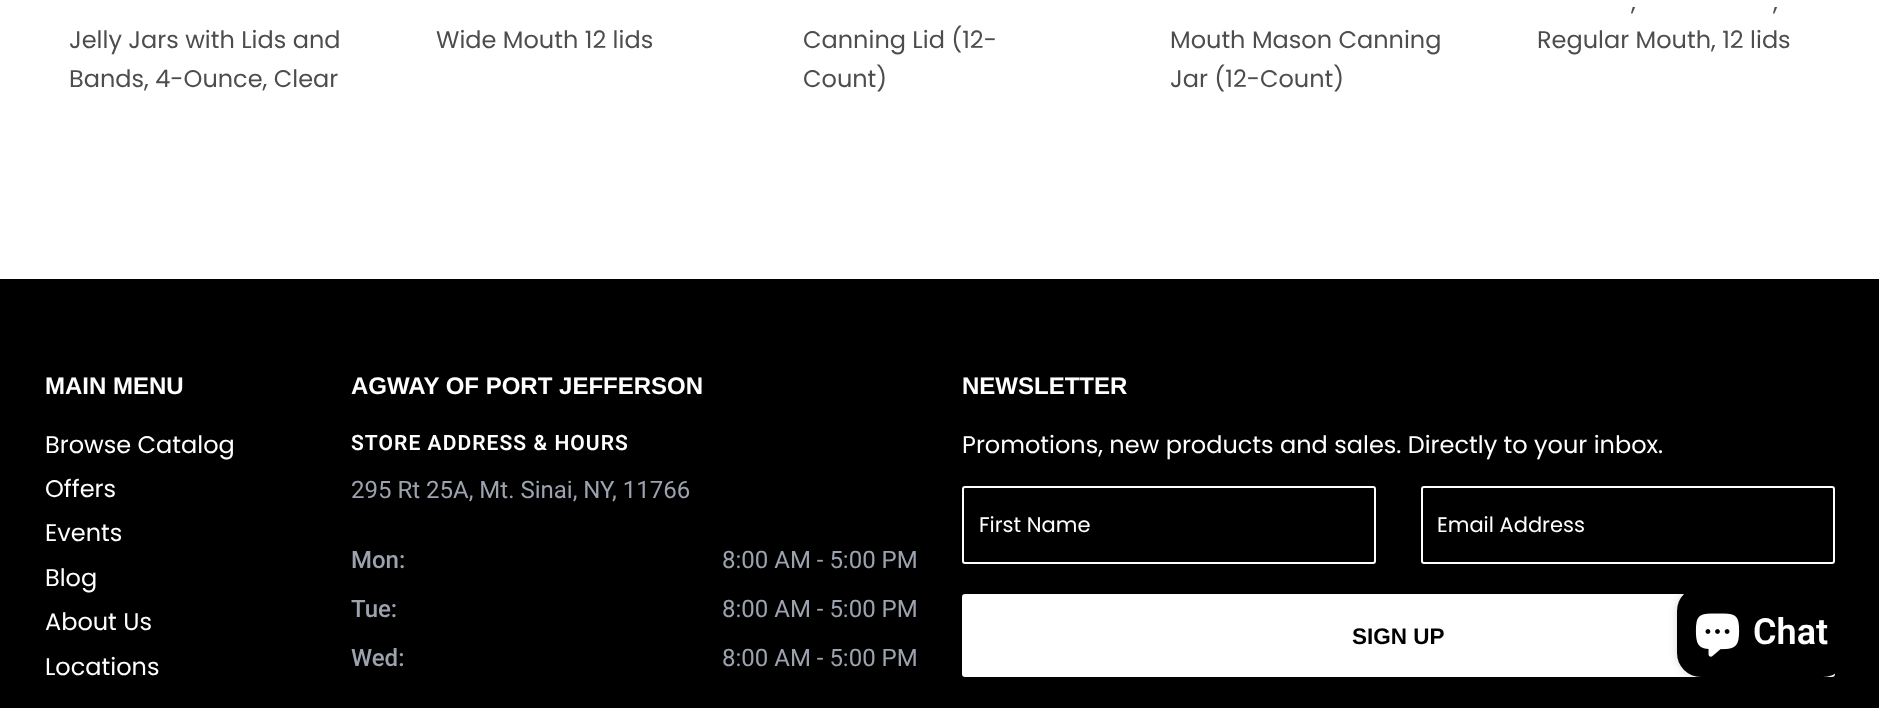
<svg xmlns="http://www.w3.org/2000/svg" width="1879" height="708">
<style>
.a{font:24px Poppins;fill:#4d4d4d}
.b{font:bold 24px Arimo;fill:#fff}
.c{font:24px Poppins;fill:#fff}
.d{font:600 21px Roboto;letter-spacing:1.05px;fill:#fff}
.e{font:24px Roboto;fill:#9ca3af}
.f{font:500 24px Roboto;fill:#9ca3af}
.g{font:21px Poppins;fill:#fff}
.h{font:bold 22.5px Arimo;fill:#000}
.i{font:600 36px Roboto;fill:#fff}
</style>
<rect width="100%" height="100%" fill="#fff"/>
<path fill="#000" d="M0 279h1879v429H0z"/>
<rect fill="none" stroke="#fff" stroke-width="2" x="963" y="487" width="412" height="76" rx="2"/>
<rect fill="none" stroke="#fff" stroke-width="2" x="1422" y="487" width="412" height="76" rx="2"/>
<rect fill="#fff" x="962" y="594" width="873" height="83" rx="3"/>
<rect fill="#00000026" filter="blur(4px)" x="1677" y="587" width="170" height="90" rx="24"/>
<rect fill="#000" x="1677" y="587" width="170" height="90" rx="24"/>
<image href="1.png" x="1695" y="613" width="45" height="44"/>
<text class="a" x="69" y="48">Jelly Jars with Lids and</text>
<text class="a" x="69" y="87">Bands, 4-Ounce, Clear</text>
<text class="a" x="436" y="48">Wide Mouth 12 lids</text>
<text class="a" x="803" y="48">Canning Lid (12-</text>
<text class="a" x="803" y="87">Count)</text>
<text class="a" x="1170" y="48">Mouth Mason Canning</text>
<text class="a" x="1170" y="87">Jar (12-Count)</text>
<text class="a" x="1631" y="10">,</text>
<text class="a" x="1773" y="10">,</text>
<text class="a" x="1537" y="48">Regular Mouth, 12 lids</text>
<text class="b" x="45" y="394">MAIN MENU</text>
<text class="c" x="45" y="453">Browse Catalog</text>
<text class="c" x="45" y="497">Offers</text>
<text class="c" x="45" y="541">Events</text>
<text class="c" x="45" y="586">Blog</text>
<text class="c" x="45" y="630">About Us</text>
<text class="c" x="45" y="675">Locations</text>
<text class="b" x="351" y="394">AGWAY OF PORT JEFFERSON</text>
<text class="d" x="351" y="450">STORE ADDRESS &amp; HOURS</text>
<text class="e" x="351" y="498">295 Rt 25A, Mt. Sinai, NY, 11766</text>
<text class="f" x="351" y="568">Mon:</text>
<text class="e" x="722" y="568">8:00 AM - 5:00 PM</text>
<text class="f" x="351" y="617">Tue:</text>
<text class="e" x="722" y="617">8:00 AM - 5:00 PM</text>
<text class="f" x="351" y="666">Wed:</text>
<text class="e" x="722" y="666">8:00 AM - 5:00 PM</text>
<text class="b" x="962" y="394">NEWSLETTER</text>
<text class="c" x="962" y="453">Promotions, new products and sales. Directly to your inbox.</text>
<text class="g" x="979" y="532">First Name</text>
<text class="g" x="1437" y="532">Email Address</text>
<text class="h" x="1352" y="644">SIGN UP</text>
<text class="i" x="1753" y="644">Chat</text>
</svg>
